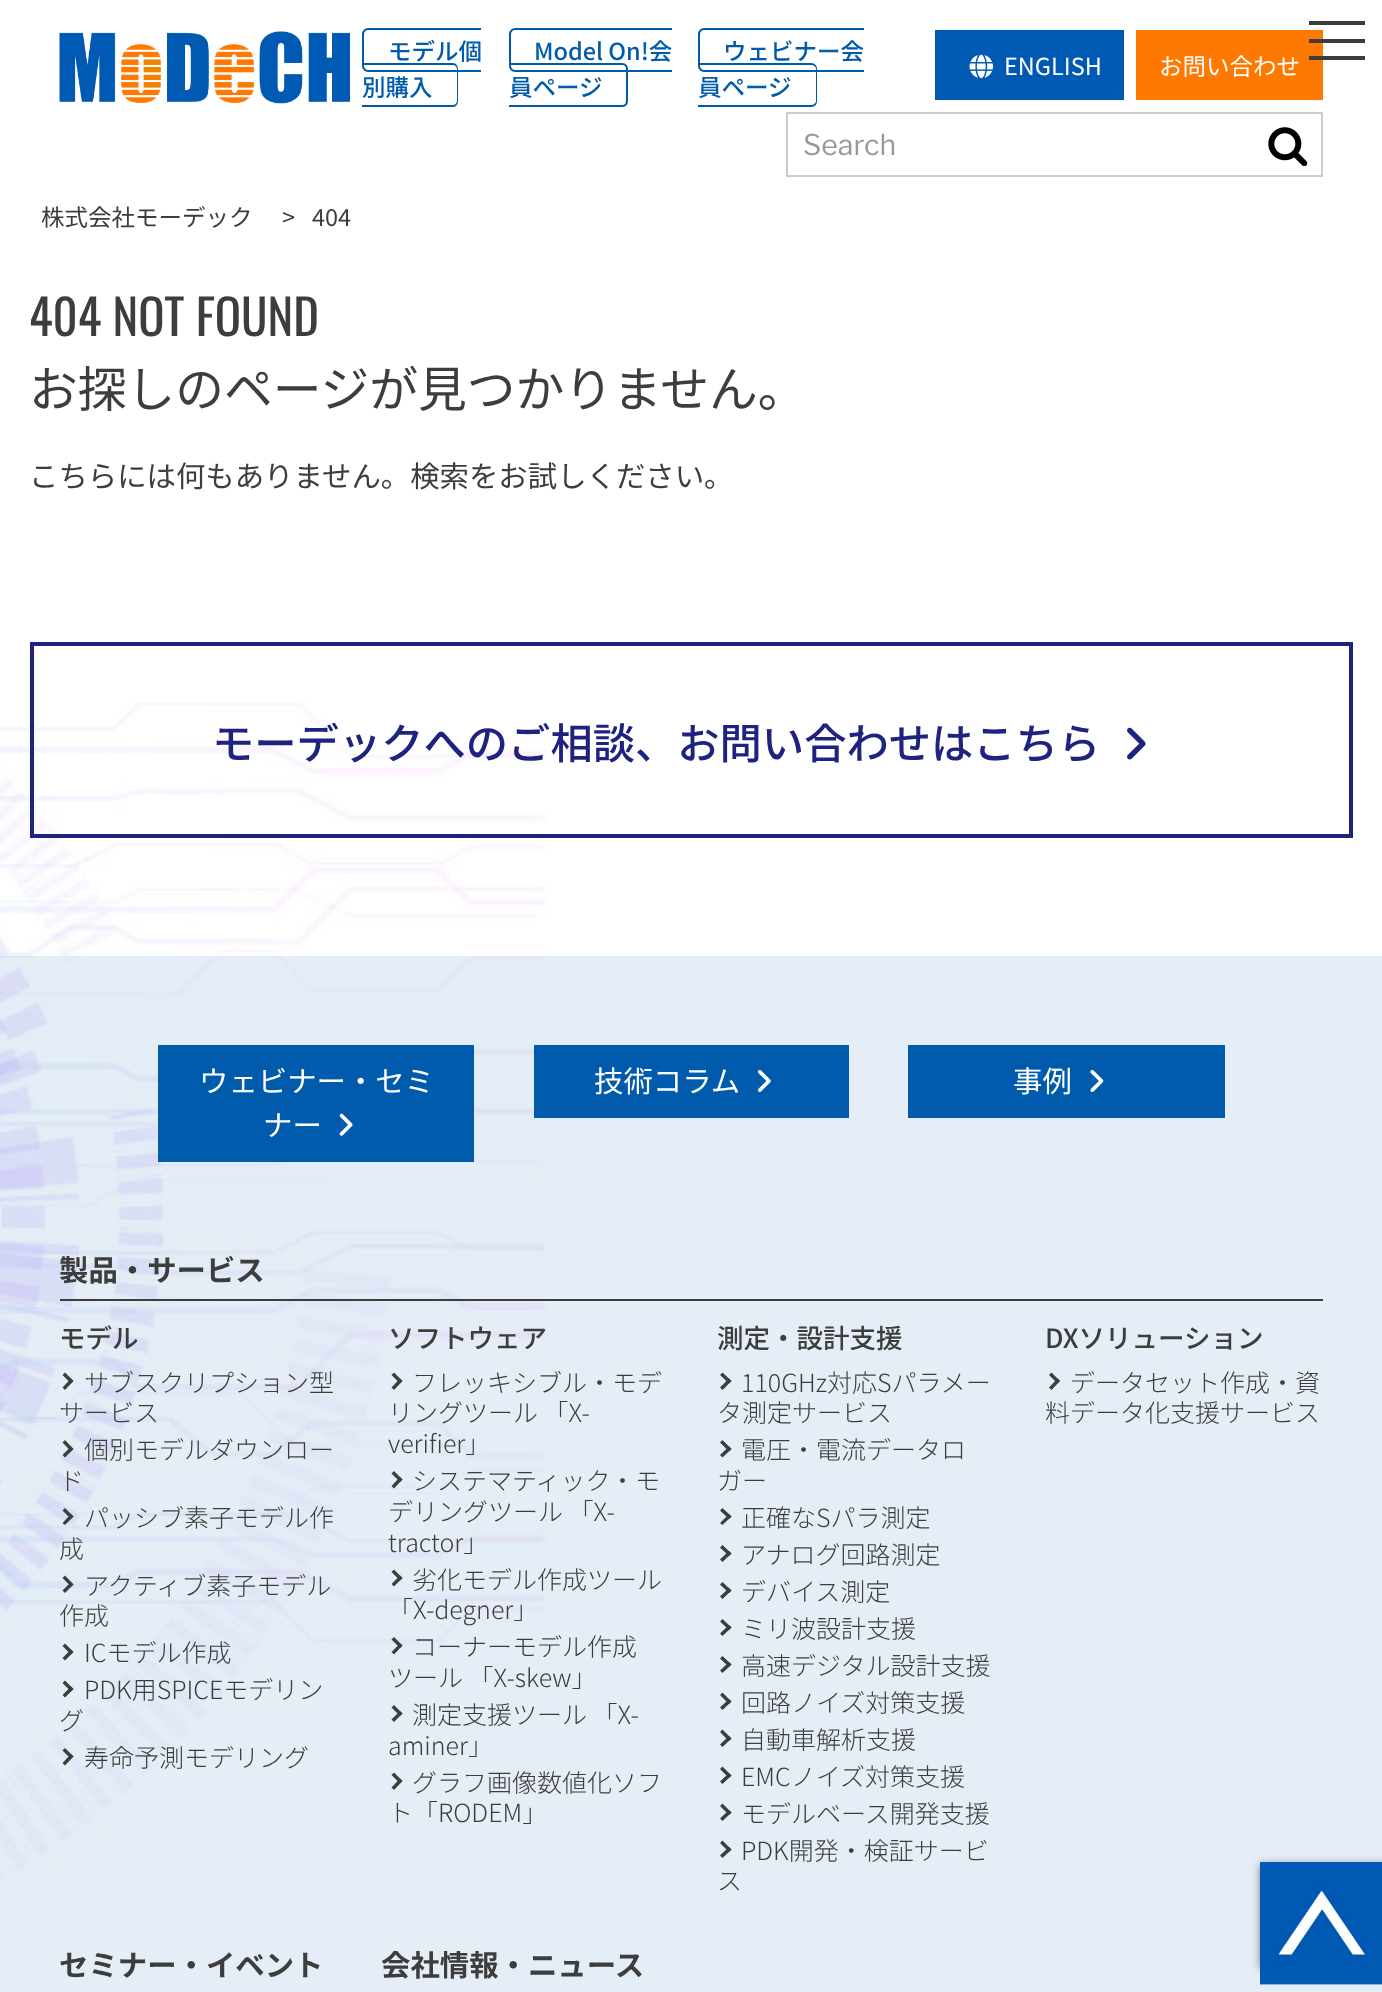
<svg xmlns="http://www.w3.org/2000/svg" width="1382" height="1992">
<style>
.a{font:500 23.5px Noto Sans JP;fill:#005bab}
.b{font:23.5px Noto Sans JP;fill:#fff}
.c{font:28.5px Libre Franklin;fill:#999}
.d{font:23.5px Noto Sans JP;fill:#3d3d3d}
.e{font:48.75px Oswald;fill:#3d3d3d}
.f{font:48.75px Noto Sans JP;fill:#3d3d3d}
.g{font:29.4px Noto Sans JP;fill:#3d3d3d}
.h{font:500 42.3px Noto Sans JP;fill:#1e2380}
.i{font:29.4px Noto Sans JP;fill:#fff}
.j{font:bold 29.4px Noto Sans JP;fill:#3d3d3d}
.k{font:500 26.5px Noto Sans JP;fill:#3d3d3d}
.l{font:300 25px Noto Sans JP;fill:#3d3d3d}
</style>
<rect width="100%" height="100%" fill="#fff"/>
<image href="1.png" x="59" y="31" width="291" height="73"/>
<path fill="#005bab" fill-rule="evenodd" d="M368 28h113v44h-113c-3 0-6-3-6-6v-32c0-3 3-6 6-6zm0 2h113v40h-113c-2 0-4-2-4-4v-32c0-2 2-4 4-4z"/>
<path fill="#005bab" fill-rule="evenodd" d="M362 63h91c3 0 5 3 5 6v32c0 3-2 6-5 6h-91zm0 2h91c2 0 4 2 4 4v32c0 2-2 4-4 4h-91z"/>
<path fill="#005bab" fill-rule="evenodd" d="M515 28h157v44h-157c-3 0-6-3-6-6v-32c0-3 3-6 6-6zm0 2h157v40h-157c-2 0-4-2-4-4v-32c0-2 2-4 4-4z"/>
<path fill="#005bab" fill-rule="evenodd" d="M509 63h113c4 0 6 3 6 6v32c0 3-2 6-6 6h-113zm0 2h113c3 0 4 2 4 4v32c0 2-1 4-4 4h-113z"/>
<path fill="#005bab" fill-rule="evenodd" d="M704 28h160v44h-160c-3 0-6-3-6-6v-32c0-3 3-6 6-6zm0 2h160v40h-160c-2 0-4-2-4-4v-32c0-2 2-4 4-4z"/>
<path fill="#005bab" fill-rule="evenodd" d="M698 63h113c4 0 6 3 6 6v32c0 3-2 6-6 6h-113zm0 2h113c3 0 5 2 5 4v32c0 2-2 4-5 4h-113z"/>
<path fill="#005ab4" d="M935 30h189v70H935z"/>
<image href="2.png" x="969" y="54" width="24" height="25"/>
<path fill="#ff7800" d="M1136 30h187v70H1136z"/>
<path fill="none" stroke="#ccc" stroke-width="2" d="M787 113h535v63H787z"/>
<image href="3.png" x="1268" y="127" width="40" height="39"/>
<path fill="#3d3d3d" d="M1309 39h56v4H1309z"/>
<path fill="#3d3d3d" d="M1309 21h56v4H1309z"/>
<path fill="#3d3d3d" d="M1309 56h56v4H1309z"/>
<image href="4.png" x="0" y="702" width="585" height="1178"/>
<path fill="none" stroke="#1e2380" stroke-width="4" d="M32 644h1319v192H32z"/>
<image href="5.png" x="1127" y="727" width="19" height="33"/>
<path fill="#005ab41a" d="M0 956h1382v1036H0z"/>
<path fill="#005bac" d="M158 1045h316v117H158z"/>
<image href="6.png" x="339" y="1113" width="14" height="23"/>
<path fill="#005bac" d="M534 1045h315v73H534z"/>
<image href="7.png" x="757" y="1070" width="14" height="22"/>
<path fill="#005bac" d="M908 1045h317v73H908z"/>
<image href="8.png" x="1090" y="1070" width="14" height="22"/>
<path fill="#3d3d3d" d="M60 1299h1263v2H60z"/>
<path fill="#3d3d3d" d="M62.5 1375l2.5-2.5l8.5 8.5l-2.5 2.5z"/>
<path fill="#3d3d3d" d="M62.5 1387.5l8.5-9l2.5 2.5l-8.5 9z"/>
<path fill="#3d3d3d" d="M62.5 1442.5l2.5-2.5l8.5 9l-2.5 2.5z"/>
<path fill="#3d3d3d" d="M62.5 1455l8.5-8.5l2.5 2.5l-8.5 8.5z"/>
<path fill="#3d3d3d" d="M62.5 1510.5l2.5-2.5l8.5 8.5l-2.5 2.5z"/>
<path fill="#3d3d3d" d="M62.5 1523l8.5-9l2.5 2.5l-8.5 8.5z"/>
<path fill="#3d3d3d" d="M62.5 1578l2.5-2.5l8.5 9l-2.5 2z"/>
<path fill="#3d3d3d" d="M62.5 1590.5l8.5-8.5l2.5 2.5l-8.5 8.5z"/>
<path fill="#3d3d3d" d="M62.5 1646l2.5-2.5l8.5 8.5l-2.5 2.5z"/>
<path fill="#3d3d3d" d="M62.5 1658l8.5-8.5l2.5 2.5l-8.5 8.5zm0 25l2.5-2.5l8.5 8.5l-2.5 2.5z"/>
<path fill="#3d3d3d" d="M62.5 1695l8.5-8.5l2.5 2.5l-8.5 8.5z"/>
<path fill="#3d3d3d" d="M62.5 1750.5l2.5-2.5l8.5 8.5l-2.5 2.5z"/>
<path fill="#3d3d3d" d="M62.5 1763l8.5-9l2.5 2.5l-8.5 9z"/>
<path fill="#3d3d3d" d="M391.5 1375l2.5-2.5l8.5 8.5l-2.5 2.5z"/>
<path fill="#3d3d3d" d="M391.5 1387.5l8.5-9l2.5 2.5l-8.5 9z"/>
<path fill="#3d3d3d" d="M391.5 1473.5l2.5-2.5l8.5 8.5l-2.5 2.5z"/>
<path fill="#3d3d3d" d="M391.5 1486l8.5-9l2.5 2.5l-8.5 9z"/>
<path fill="#3d3d3d" d="M391.5 1572l2.5-2.5l8.5 8.5l-2.5 2.5z"/>
<path fill="#3d3d3d" d="M391.5 1584l8.5-8.5l2.5 2.5l-8.5 8.5z"/>
<path fill="#3d3d3d" d="M391.5 1639.5l2.5-2.5l8.5 8.5l-2.5 2.5z"/>
<path fill="#3d3d3d" d="M391.5 1652l8.5-8.5l2.5 2l-8.5 9z"/>
<path fill="#3d3d3d" d="M391.5 1707.5l2.5-2.5l8.5 8.5l-2.5 2.5z"/>
<path fill="#3d3d3d" d="M391.5 1719.5l8.5-8.5l2.5 2.5l-8.5 8.5z"/>
<path fill="#3d3d3d" d="M391.5 1775l2.5-2.5l8.5 8.5l-2.5 2.5z"/>
<path fill="#3d3d3d" d="M391.5 1787.5l8.5-9l2.5 2.5l-8.5 9z"/>
<path fill="#3d3d3d" d="M720 1375l2.5-2.5l9 8.5l-2.5 2.5z"/>
<path fill="#3d3d3d" d="M720 1387.5l9-9l2.5 2.5l-9 9z"/>
<path fill="#3d3d3d" d="M720 1442.5l2.5-2.5l9 9l-2.5 2.5z"/>
<path fill="#3d3d3d" d="M720 1455l9-8.5l2.5 2.5l-9 8.5z"/>
<path fill="#3d3d3d" d="M720 1510.5l2.5-2.5l9 8.5l-2.5 2.5z"/>
<path fill="#3d3d3d" d="M720 1523l9-9l2.5 2.5l-9 8.5zm0 24.5l2.5-2.5l9 8.5l-2.5 2.5z"/>
<path fill="#3d3d3d" d="M720 1559.5l9-8.5l2.5 2.5l-9 8.5zm0 25l2.5-2.5l9 8.5l-2.5 2.5z"/>
<path fill="#3d3d3d" d="M720 1596.5l9-8.5l2.5 2.5l-9 8.5zm0 25l2.5-2.5l9 8.5l-2.5 2.5z"/>
<path fill="#3d3d3d" d="M720 1633.5l9-8.5l2.5 2.5l-9 8.5zm0 25l2.5-2.5l9 8.5l-2.5 2.5z"/>
<path fill="#3d3d3d" d="M720 1670.5l9-8.5l2.5 2.5l-9 8.5zm0 24.5l2.5-2.5l9 9l-2.5 2.5z"/>
<path fill="#3d3d3d" d="M720 1707.5l9-8.5l2.5 2.5l-9 8.5zm0 24.5l2.5-2.5l9 9l-2.5 2.5z"/>
<path fill="#3d3d3d" d="M720 1744.5l9-8.5l2.5 2.5l-9 8.5zm0 24.5l2.5-2.5l9 9l-2.5 2.5z"/>
<path fill="#3d3d3d" d="M720 1781.5l9-8.5l2.5 2.5l-9 8.5zm0 24.5l2.5-2.5l9 9l-2.5 2.5z"/>
<path fill="#3d3d3d" d="M720 1818.5l9-8.5l2.5 2.5l-9 8.5zm0 24.5l2.5-2.5l9 9l-2.5 2.5z"/>
<path fill="#3d3d3d" d="M720 1855.5l9-8.5l2.5 2.5l-9 8.5z"/>
<path fill="#3d3d3d" d="M1049 1375l2.5-2.5l8.5 8.5l-2.5 2.5z"/>
<path fill="#3d3d3d" d="M1049 1387.5l8.5-9l2.5 2.5l-8.5 9z"/>
<rect fill="#808080" filter="blur(4.5px)" x="1260" y="1864" width="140" height="105" rx="4"/>
<image href="9.png" x="1260" y="1862" width="122" height="123"/>
<text class="a" x="388" y="60">モデル個</text>
<text class="a" x="362" y="96">別購入</text>
<text class="a" x="534" y="60">Model On!会</text>
<text class="a" x="509" y="96">員ページ</text>
<text class="a" x="723" y="60">ウェビナー会</text>
<text class="a" x="698" y="96">員ページ</text>
<text class="b" x="1004" y="75">ENGLISH</text>
<text class="b" x="1159" y="75">お問い合わせ</text>
<text class="c" x="803" y="155">Search</text>
<text class="d" x="41" y="226">株式会社モーデック</text>
<text class="d" x="282" y="226">&gt;</text>
<text class="d" x="312" y="226">404</text>
<text class="e" x="29" y="336">404 NOT FOUND</text>
<text class="f" x="29" y="407">お探しのページが見つかりません。</text>
<text class="g" x="29" y="487">こちらには何もありません。検索をお試しください。</text>
<text class="h" x="212" y="759">モーデックへのご相談、お問い合わせはこちら</text>
<text class="i" x="199" y="1092">ウェビナー・セミ</text>
<text class="i" x="263" y="1136">ナー</text>
<text class="i" x="594" y="1092">技術コラム</text>
<text class="i" x="1013" y="1092">事例</text>
<text class="j" x="59" y="1281">製品・サービス</text>
<text class="k" x="59" y="1348">モデル</text>
<text class="l" x="84" y="1392">サブスクリプション型</text>
<text class="l" x="59" y="1422">サービス</text>
<text class="l" x="84" y="1459">個別モデルダウンロー</text>
<text class="l" x="59" y="1490">ド</text>
<text class="l" x="84" y="1527">パッシブ素子モデル作</text>
<text class="l" x="59" y="1558">成</text>
<text class="l" x="84" y="1595">アクティブ素子モデル</text>
<text class="l" x="59" y="1625">作成</text>
<text class="l" x="84" y="1662">ICモデル作成</text>
<text class="l" x="84" y="1699">PDK用SPICEモデリン</text>
<text class="l" x="59" y="1730">グ</text>
<text class="l" x="84" y="1767">寿命予測モデリング</text>
<text class="k" x="388" y="1348">ソフトウェア</text>
<text class="l" x="412" y="1392">フレッキシブル・モデ</text>
<text class="l" x="388" y="1422">リングツール 「X-</text>
<text class="l" x="388" y="1453">verifier」</text>
<text class="l" x="412" y="1490">システマティック・モ</text>
<text class="l" x="388" y="1521">デリングツール 「X-</text>
<text class="l" x="388" y="1552">tractor」</text>
<text class="l" x="412" y="1589">劣化モデル作成ツール</text>
<text class="l" x="388" y="1619">「X-degner」</text>
<text class="l" x="412" y="1656">コーナーモデル作成</text>
<text class="l" x="388" y="1687">ツール 「X-skew」</text>
<text class="l" x="412" y="1724">測定支援ツール 「X-</text>
<text class="l" x="388" y="1755">aminer」</text>
<text class="l" x="412" y="1792">グラフ画像数値化ソフ</text>
<text class="l" x="388" y="1822">ト「RODEM」</text>
<text class="k" x="717" y="1348">測定・設計支援</text>
<text class="l" x="741" y="1392">110GHz対応Sパラメー</text>
<text class="l" x="717" y="1422">タ測定サービス</text>
<text class="l" x="741" y="1459">電圧・電流データロ</text>
<text class="l" x="717" y="1490">ガー</text>
<text class="l" x="741" y="1527">正確なSパラ測定</text>
<text class="l" x="741" y="1564">アナログ回路測定</text>
<text class="l" x="741" y="1601">デバイス測定</text>
<text class="l" x="741" y="1638">ミリ波設計支援</text>
<text class="l" x="741" y="1675">高速デジタル設計支援</text>
<text class="l" x="741" y="1712">回路ノイズ対策支援</text>
<text class="l" x="741" y="1749">自動車解析支援</text>
<text class="l" x="741" y="1786">EMCノイズ対策支援</text>
<text class="l" x="741" y="1823">モデルベース開発支援</text>
<text class="l" x="741" y="1860">PDK開発・検証サービ</text>
<text class="l" x="717" y="1890">ス</text>
<text class="k" x="1045" y="1348">DXソリューション</text>
<text class="l" x="1070" y="1392">データセット作成・資</text>
<text class="l" x="1045" y="1422">料データ化支援サービス</text>
<text class="j" x="59" y="1976">セミナー・イベント</text>
<text class="j" x="381" y="1976">会社情報・ニュース</text>
</svg>
